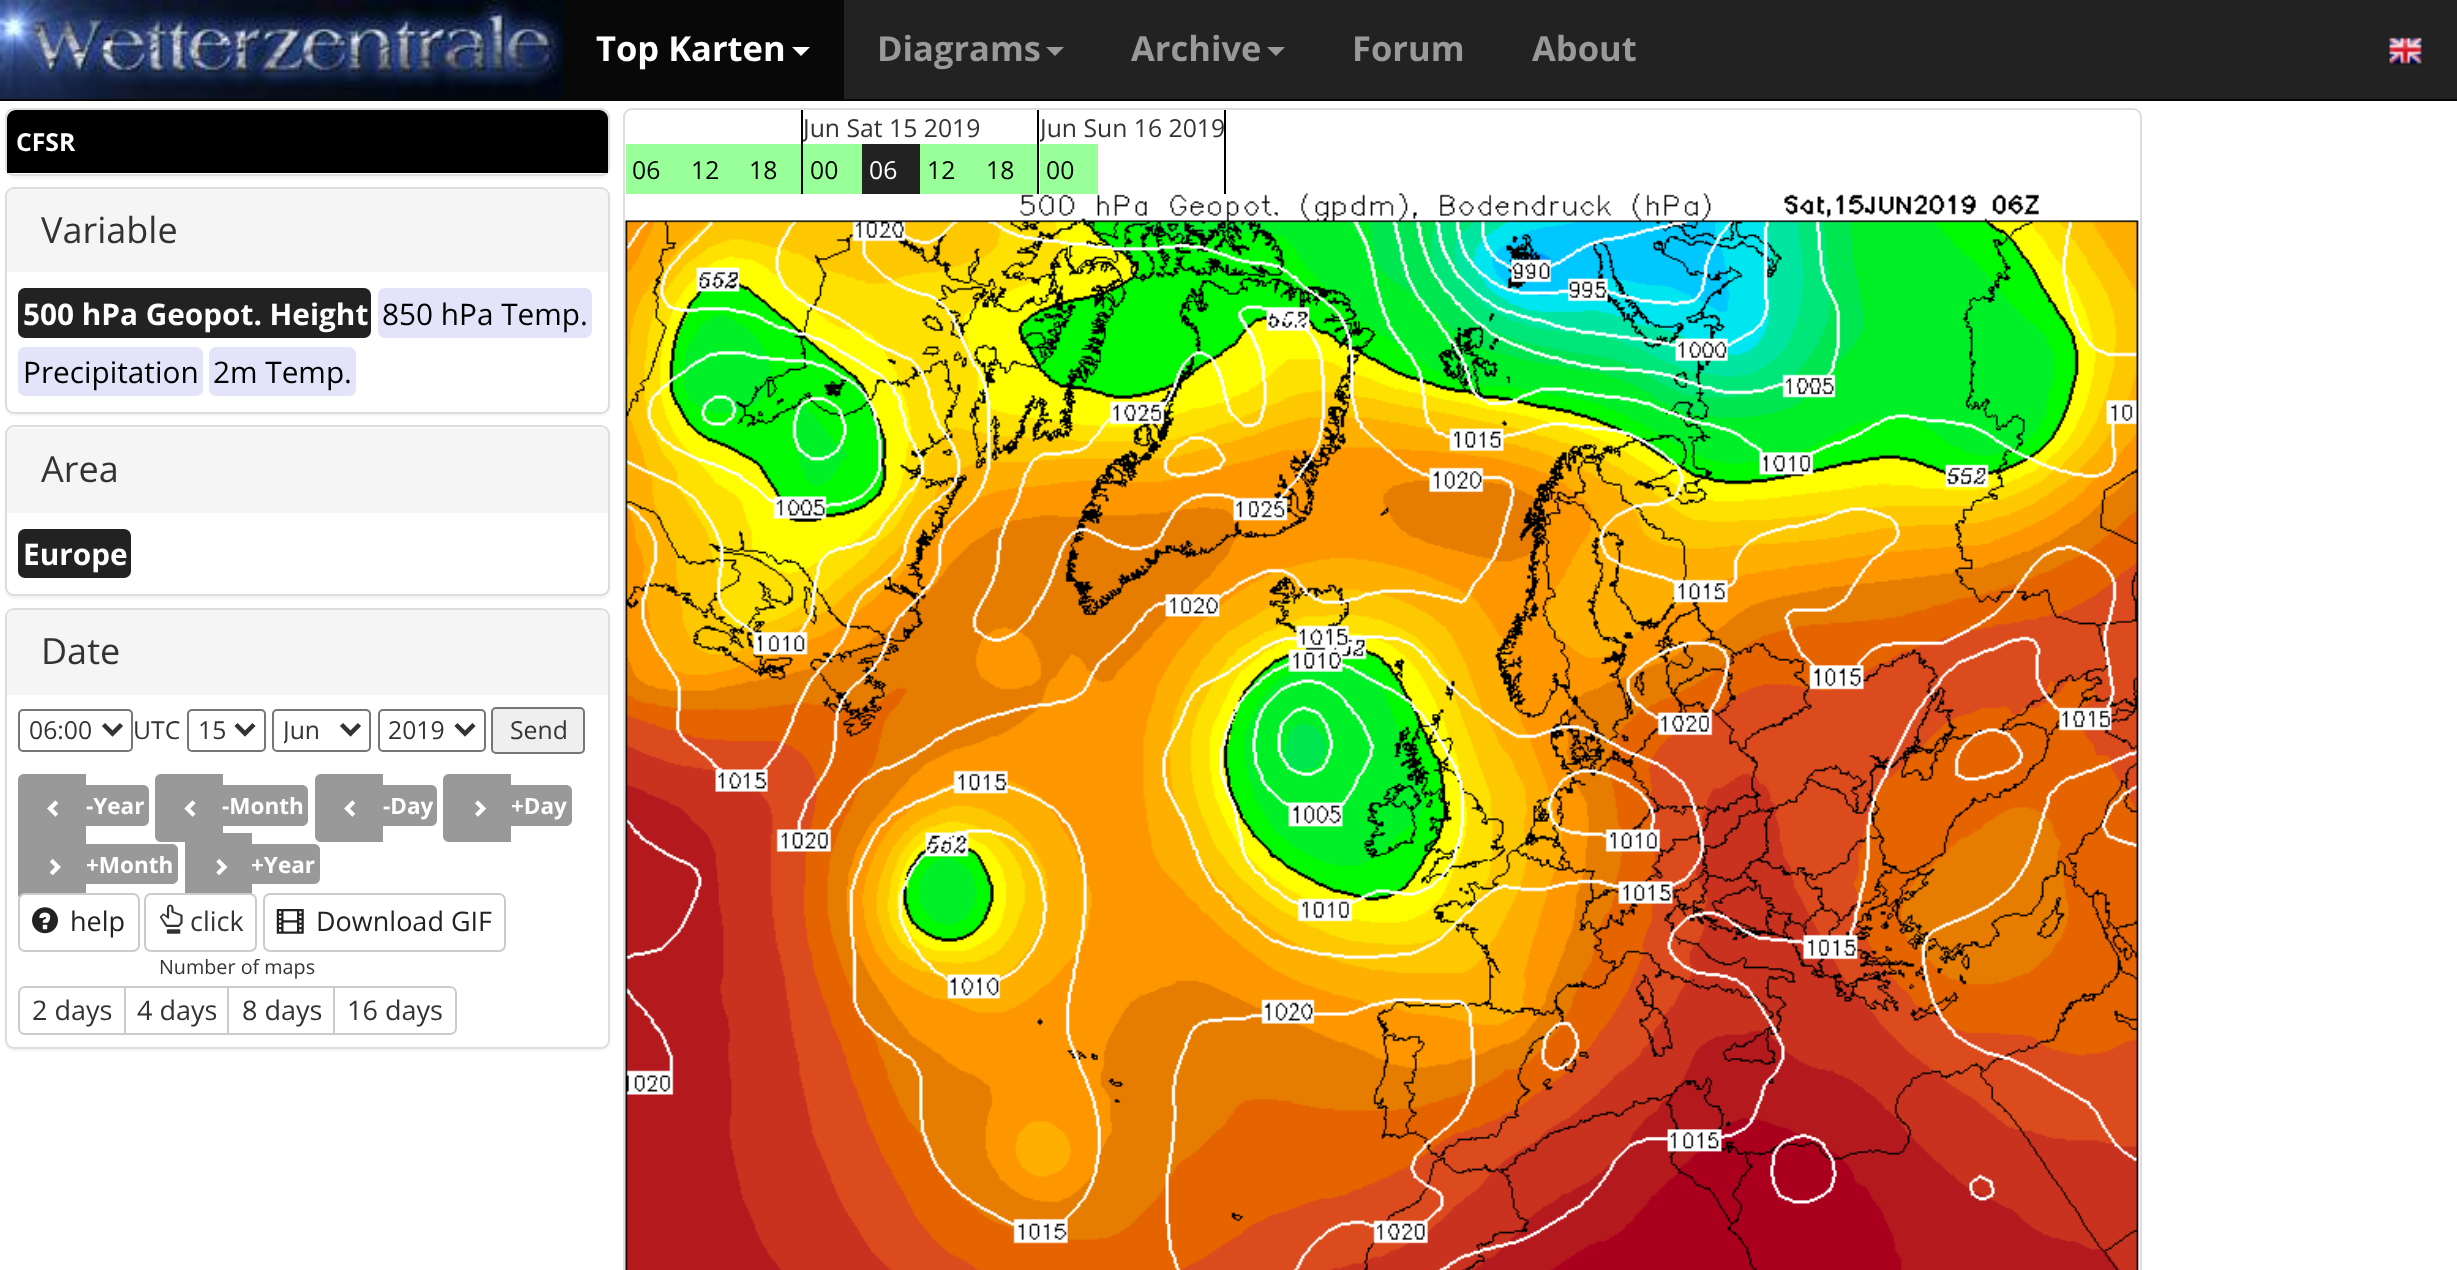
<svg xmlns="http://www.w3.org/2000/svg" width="2457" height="1270">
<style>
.a{font:bold 34.5px Open Sans;fill:#fff}
.b{font:bold 34.5px Open Sans;fill:#999}
.c{font:bold 24.75px Open Sans;fill:#fff}
.d{font:36px Open Sans;fill:#333}
.e{font:bold 29.75px Open Sans;fill:#fff}
.f{font:29.75px Open Sans;fill:#000}
.g{font:24.75px Open Sans;fill:#333}
.h{font:bold 22.5px Open Sans;fill:#fff}
.i{font:27px Open Sans;fill:#222}
.j{font:27px Open Sans;fill:#333}
.k{font:19.75px Open Sans;fill:#333}
.l{font:24.75px Open Sans;fill:#000}
.m{font:24.75px Open Sans;fill:#fff}
</style>
<defs>
<clipPath id="clip1"><path d="M284 711h49v38H284z"/></clipPath>
<clipPath id="clip2"><path d="M803 110h234v84H803z"/></clipPath>
<clipPath id="clip3"><path d="M1040 110h184v84H1040z"/></clipPath>
</defs>
<rect width="100%" height="100%" fill="#fff"/>
<path fill="#222" d="M844 0h1613v99H844z"/>
<path fill="#080808" d="M0 99h2457v2H0z"/>
<image href="1.png" x="0" y="0" width="563" height="99"/>
<path fill="#080808" d="M563 0h281v99H563z"/>
<path fill="#fff" d="M792 47h18l-9 9z"/>
<path fill="#999" d="M1046 47h18l-9 9z"/>
<path fill="#999" d="M1267 47h18l-9 9z"/>
<image href="2.png" x="2388" y="37" width="35" height="28"/>
<rect fill="#0000000d" filter="blur(1px)" x="5" y="110" width="605" height="68" rx="9"/>
<rect fill="#fff" stroke="#ddd" stroke-width="2" x="6" y="109" width="603" height="66" rx="8"/>
<path fill="#000" d="M16 110h583c5 0 9 4 9 9v54h-601v-54c0-5 4-9 9-9z"/>
<rect fill="#0000000d" filter="blur(1px)" x="5" y="189" width="605" height="227" rx="9"/>
<rect fill="#fff" stroke="#ddd" stroke-width="2" x="6" y="188" width="603" height="225" rx="8"/>
<path fill="#f5f5f5" d="M14 189h587c4 0 7 3 7 7v76h-601v-76c0-4 3-7 7-7z"/>
<rect fill="#222" x="18" y="288" width="353" height="50" rx="7"/>
<rect fill="#e3e4fa" x="378" y="288" width="214" height="50" rx="7"/>
<rect fill="#e3e4fa" x="18" y="347" width="185" height="49" rx="7"/>
<rect fill="#e3e4fa" x="209" y="347" width="147" height="49" rx="7"/>
<rect fill="#0000000d" filter="blur(1px)" x="5" y="428" width="605" height="171" rx="9"/>
<rect fill="#fff" stroke="#ddd" stroke-width="2" x="6" y="426" width="603" height="169" rx="8"/>
<path fill="#f5f5f5" d="M14 428h587c4 0 7 3 7 7v78h-601v-78c0-4 3-7 7-7z"/>
<rect fill="#222" x="18" y="529" width="113" height="49" rx="7"/>
<rect fill="#0000000d" filter="blur(1px)" x="5" y="610" width="605" height="441" rx="9"/>
<rect fill="#fff" stroke="#ddd" stroke-width="2" x="6" y="609" width="603" height="439" rx="8"/>
<path fill="#f5f5f5" d="M14 610h587c4 0 7 3 7 7v78h-601v-78c0-4 3-7 7-7z"/>
<rect fill="none" stroke="#767676" stroke-width="2" x="19" y="710" width="113" height="41" rx="4"/>
<path fill="none" stroke="#333" stroke-width="4.5" d="M103.5 724.5l9 9l9-9"/>
<rect fill="none" stroke="#767676" stroke-width="2" x="188" y="710" width="77" height="41" rx="4"/>
<path fill="none" stroke="#333" stroke-width="4.5" d="M236 724.5l9 9l9-9"/>
<rect fill="none" stroke="#767676" stroke-width="2" x="273" y="710" width="97" height="41" rx="4"/>
<path fill="none" stroke="#333" stroke-width="4.5" d="M341.5 724.5l9 9l9-9"/>
<rect fill="none" stroke="#767676" stroke-width="2" x="379" y="710" width="106" height="41" rx="4"/>
<path fill="none" stroke="#333" stroke-width="4.5" d="M456 724.5l9 9l9-9"/>
<rect fill="#efefef" stroke="#767676" stroke-width="2" x="492" y="708" width="92" height="45" rx="4"/>
<path fill="#999" d="M24 774h62v68h-62c-3.5 0-6-2.5-6-6v-56c0-3.5 2.5-6 6-6z"/>
<path fill="#999" d="M86 785h57c3.5 0 6 2.5 6 6v29c0 3.5-2.5 6-6 6h-57z"/>
<image href="3.png" x="47" y="800" width="12" height="17"/>
<path fill="#999" d="M161 774h62v68h-62c-3.5 0-6-2.5-6-6v-56c0-3.5 2.5-6 6-6z"/>
<path fill="#999" d="M223 785h79c3.5 0 6 2.5 6 6v29c0 3.5-2.5 6-6 6h-79z"/>
<image href="4.png" x="184" y="800" width="12" height="17"/>
<path fill="#999" d="M321 774h62v68h-62c-3.5 0-6-2.5-6-6v-56c0-3.5 2.5-6 6-6z"/>
<path fill="#999" d="M383 785h48c3.5 0 6 2.5 6 6v29c0 3.5-2.5 6-6 6h-48z"/>
<image href="3.png" x="344" y="800" width="12" height="17"/>
<path fill="#999" d="M449 774h62v68h-62c-3.5 0-6-2.5-6-6v-56c0-3.5 2.5-6 6-6z"/>
<path fill="#999" d="M511 785h55c3.5 0 6 2.5 6 6v29c0 3.5-2.5 6-6 6h-55z"/>
<image href="5.png" x="475" y="800" width="12" height="17"/>
<path fill="#999" d="M24 833h62v67h-62c-3.5 0-6-2.5-6-6v-55c0-3.5 2.5-6 6-6z"/>
<path fill="#999" d="M86 844h86c3.5 0 6 2.5 6 6v28c0 3.5-2.5 6-6 6h-86z"/>
<image href="6.png" x="49" y="858" width="12" height="18"/>
<path fill="#999" d="M191 833h61v67h-61c-3.5 0-6-2.5-6-6v-55c0-3.5 2.5-6 6-6z"/>
<path fill="#999" d="M252 844h62c3.5 0 6 2.5 6 6v28c0 3.5-2.5 6-6 6h-62z"/>
<image href="7.png" x="216" y="858" width="12" height="18"/>
<rect fill="#fff" stroke="#ccc" stroke-width="2" x="19" y="894" width="120" height="57" rx="6"/>
<image href="8.png" x="32" y="907" width="26" height="27"/>
<rect fill="#fff" stroke="#ccc" stroke-width="2" x="145" y="894" width="111" height="57" rx="6"/>
<image href="9.png" x="160" y="904" width="23" height="30"/>
<rect fill="none" stroke="#ccc" stroke-width="2" x="264" y="894" width="241" height="57" rx="6"/>
<image href="10.png" x="276" y="909" width="28" height="25"/>
<path fill="none" stroke="#ccc" stroke-width="2" d="M25 987h100v47h-100c-3.5 0-6-2.5-6-6v-35c0-3.5 2.5-6 6-6z"/>
<path fill="none" stroke="#ccc" stroke-width="2" d="M125 987h104v47H125z"/>
<path fill="#fff" d="M229 988h1v45H229z"/>
<path fill="none" stroke="#ccc" stroke-width="2" d="M228 987h106v47H228z"/>
<path fill="#fff" stroke="#ccc" stroke-width="2" d="M334 987h116c3.5 0 6 2.5 6 6v35c0 3.5-2.5 6-6 6h-116z"/>
<rect fill="none" stroke="#ddd" stroke-width="2" x="624" y="109" width="1517" height="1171" rx="8"/>
<image href="11.png" x="625" y="193" width="1514" height="1077"/>
<path fill="#000" d="M801 110h2v84H801z"/>
<path fill="#9f9" d="M626 144h175v50H626z"/>
<path fill="#000" d="M1037 110h2v84H1037z"/>
<path fill="#9f9" d="M803 144h59v50H803z"/>
<path fill="#222" d="M862 144h58v50H862z"/>
<path fill="#9f9" d="M920 144h117v50H920z"/>
<path fill="#000" d="M1224 110h2v84H1224z"/>
<path fill="#9f9" d="M1040 144h58v50H1040z"/>
<text class="a" x="596" y="61">Top Karten</text>
<text class="b" x="877" y="61">Diagrams</text>
<text class="b" x="1131" y="61">Archive</text>
<text class="b" x="1352" y="61">Forum</text>
<text class="b" x="1532" y="61">About</text>
<text class="c" x="16" y="151">CFSR</text>
<text class="d" x="41" y="243">Variable</text>
<text class="e" x="23" y="325">500 hPa Geopot. Height</text>
<text class="f" x="382" y="325">850 hPa Temp.</text>
<text class="f" x="23" y="383">Precipitation</text>
<text class="f" x="213" y="383">2m Temp.</text>
<text class="d" x="41" y="482">Area</text>
<text class="e" x="23" y="565">Europe</text>
<text class="d" x="41" y="664">Date</text>
<text class="g" x="29" y="739">06:00</text>
<text class="g" x="133" y="739">UTC</text>
<text class="g" x="198" y="739">15</text>
<g clip-path="url(#clip1)">
<text class="g" x="283" y="739">Jun</text>
</g>
<text class="g" x="388" y="739">2019</text>
<text class="g" x="510" y="739">Send</text>
<text class="h" x="86" y="814">-Year</text>
<text class="h" x="222" y="814">-Month</text>
<text class="h" x="383" y="814">-Day</text>
<text class="h" x="511" y="814">+Day</text>
<text class="h" x="86" y="873">+Month</text>
<text class="h" x="251" y="873">+Year</text>
<text class="i" x="70" y="931">help</text>
<text class="j" x="190" y="931">click</text>
<text class="i" x="316" y="931">Download GIF</text>
<text class="k" x="159" y="974">Number of maps</text>
<text class="j" x="32" y="1020">2 days</text>
<text class="j" x="137" y="1020">4 days</text>
<text class="j" x="242" y="1020">8 days</text>
<text class="j" x="347" y="1020">16 days</text>
<text class="l" x="632" y="179">06</text>
<text class="l" x="691" y="179">12</text>
<text class="l" x="749" y="179">18</text>
<g clip-path="url(#clip2)">
<text class="g" x="803" y="137">Jun Sat 15 2019</text>
</g>
<text class="l" x="810" y="179">00</text>
<text class="m" x="869" y="179">06</text>
<text class="l" x="927" y="179">12</text>
<text class="l" x="986" y="179">18</text>
<g clip-path="url(#clip3)">
<text class="g" x="1040" y="137">Jun Sun 16 2019</text>
</g>
<text class="l" x="1046" y="179">00</text>
</svg>
